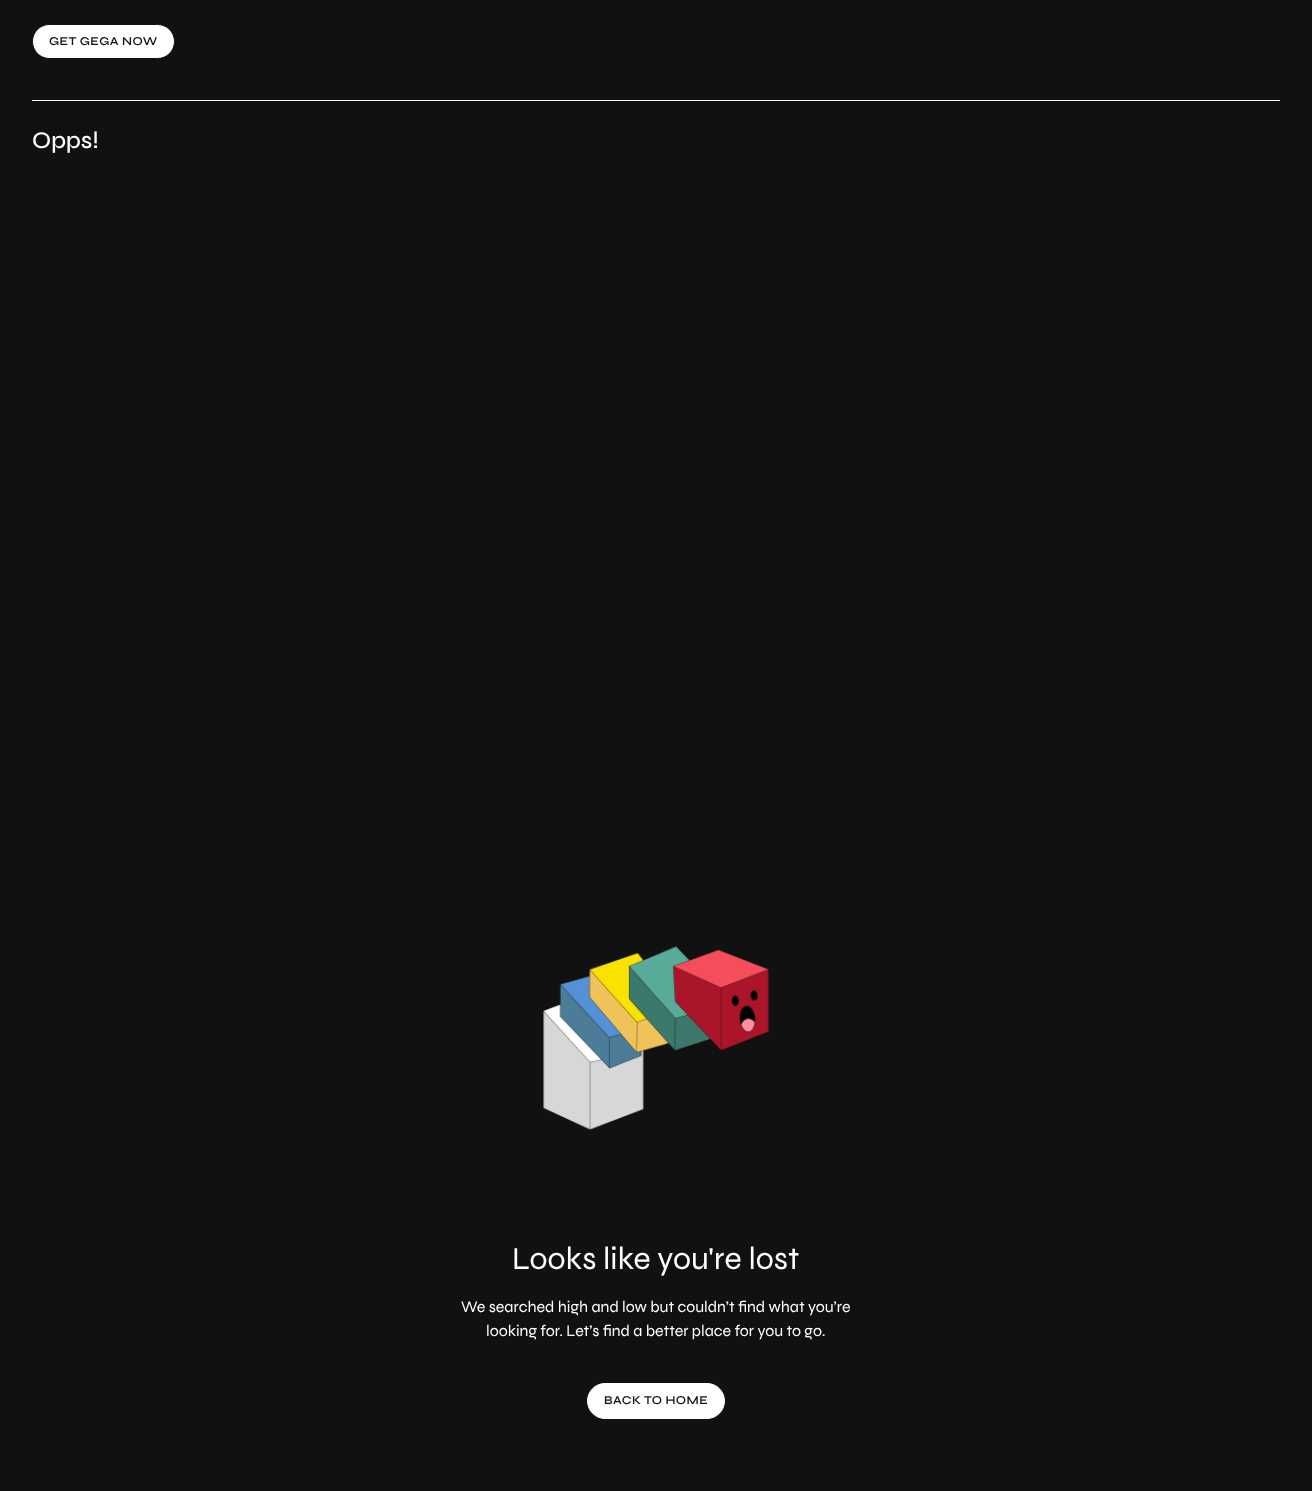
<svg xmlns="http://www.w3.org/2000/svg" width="1312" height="1491">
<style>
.a{font:600 12px Syne;letter-spacing:0.4px;fill:#111}
.b{font:500 24px Syne;fill:#fff}
.c{font:32px Syne;fill:#fff}
.d{font:16px Syne;fill:#fff}
</style>
<rect width="100%" height="100%" fill="#111"/>
<rect fill="#fff" stroke="#111" x="32.5" y="24.5" width="142" height="34" rx="17"/>
<path fill="#fff" d="M32 100h1248v1H32z"/>
<image href="1.png" x="543" y="946" width="226" height="184"/>
<rect fill="#fff" stroke="#fff" x="587.5" y="1383.5" width="137" height="35" rx="17.5"/>
<text class="a" x="49" y="45">GET GEGA NOW</text>
<text class="b" x="32" y="148">Opps!</text>
<text class="c" x="512" y="1269">Looks like you're lost</text>
<text class="d" x="461" y="1312">We searched high and low but couldn’t find what you’re</text>
<text class="d" x="486" y="1336">looking for. Let’s find a better place for you to go.</text>
<text class="a" x="604" y="1404">BACK TO HOME</text>
</svg>
